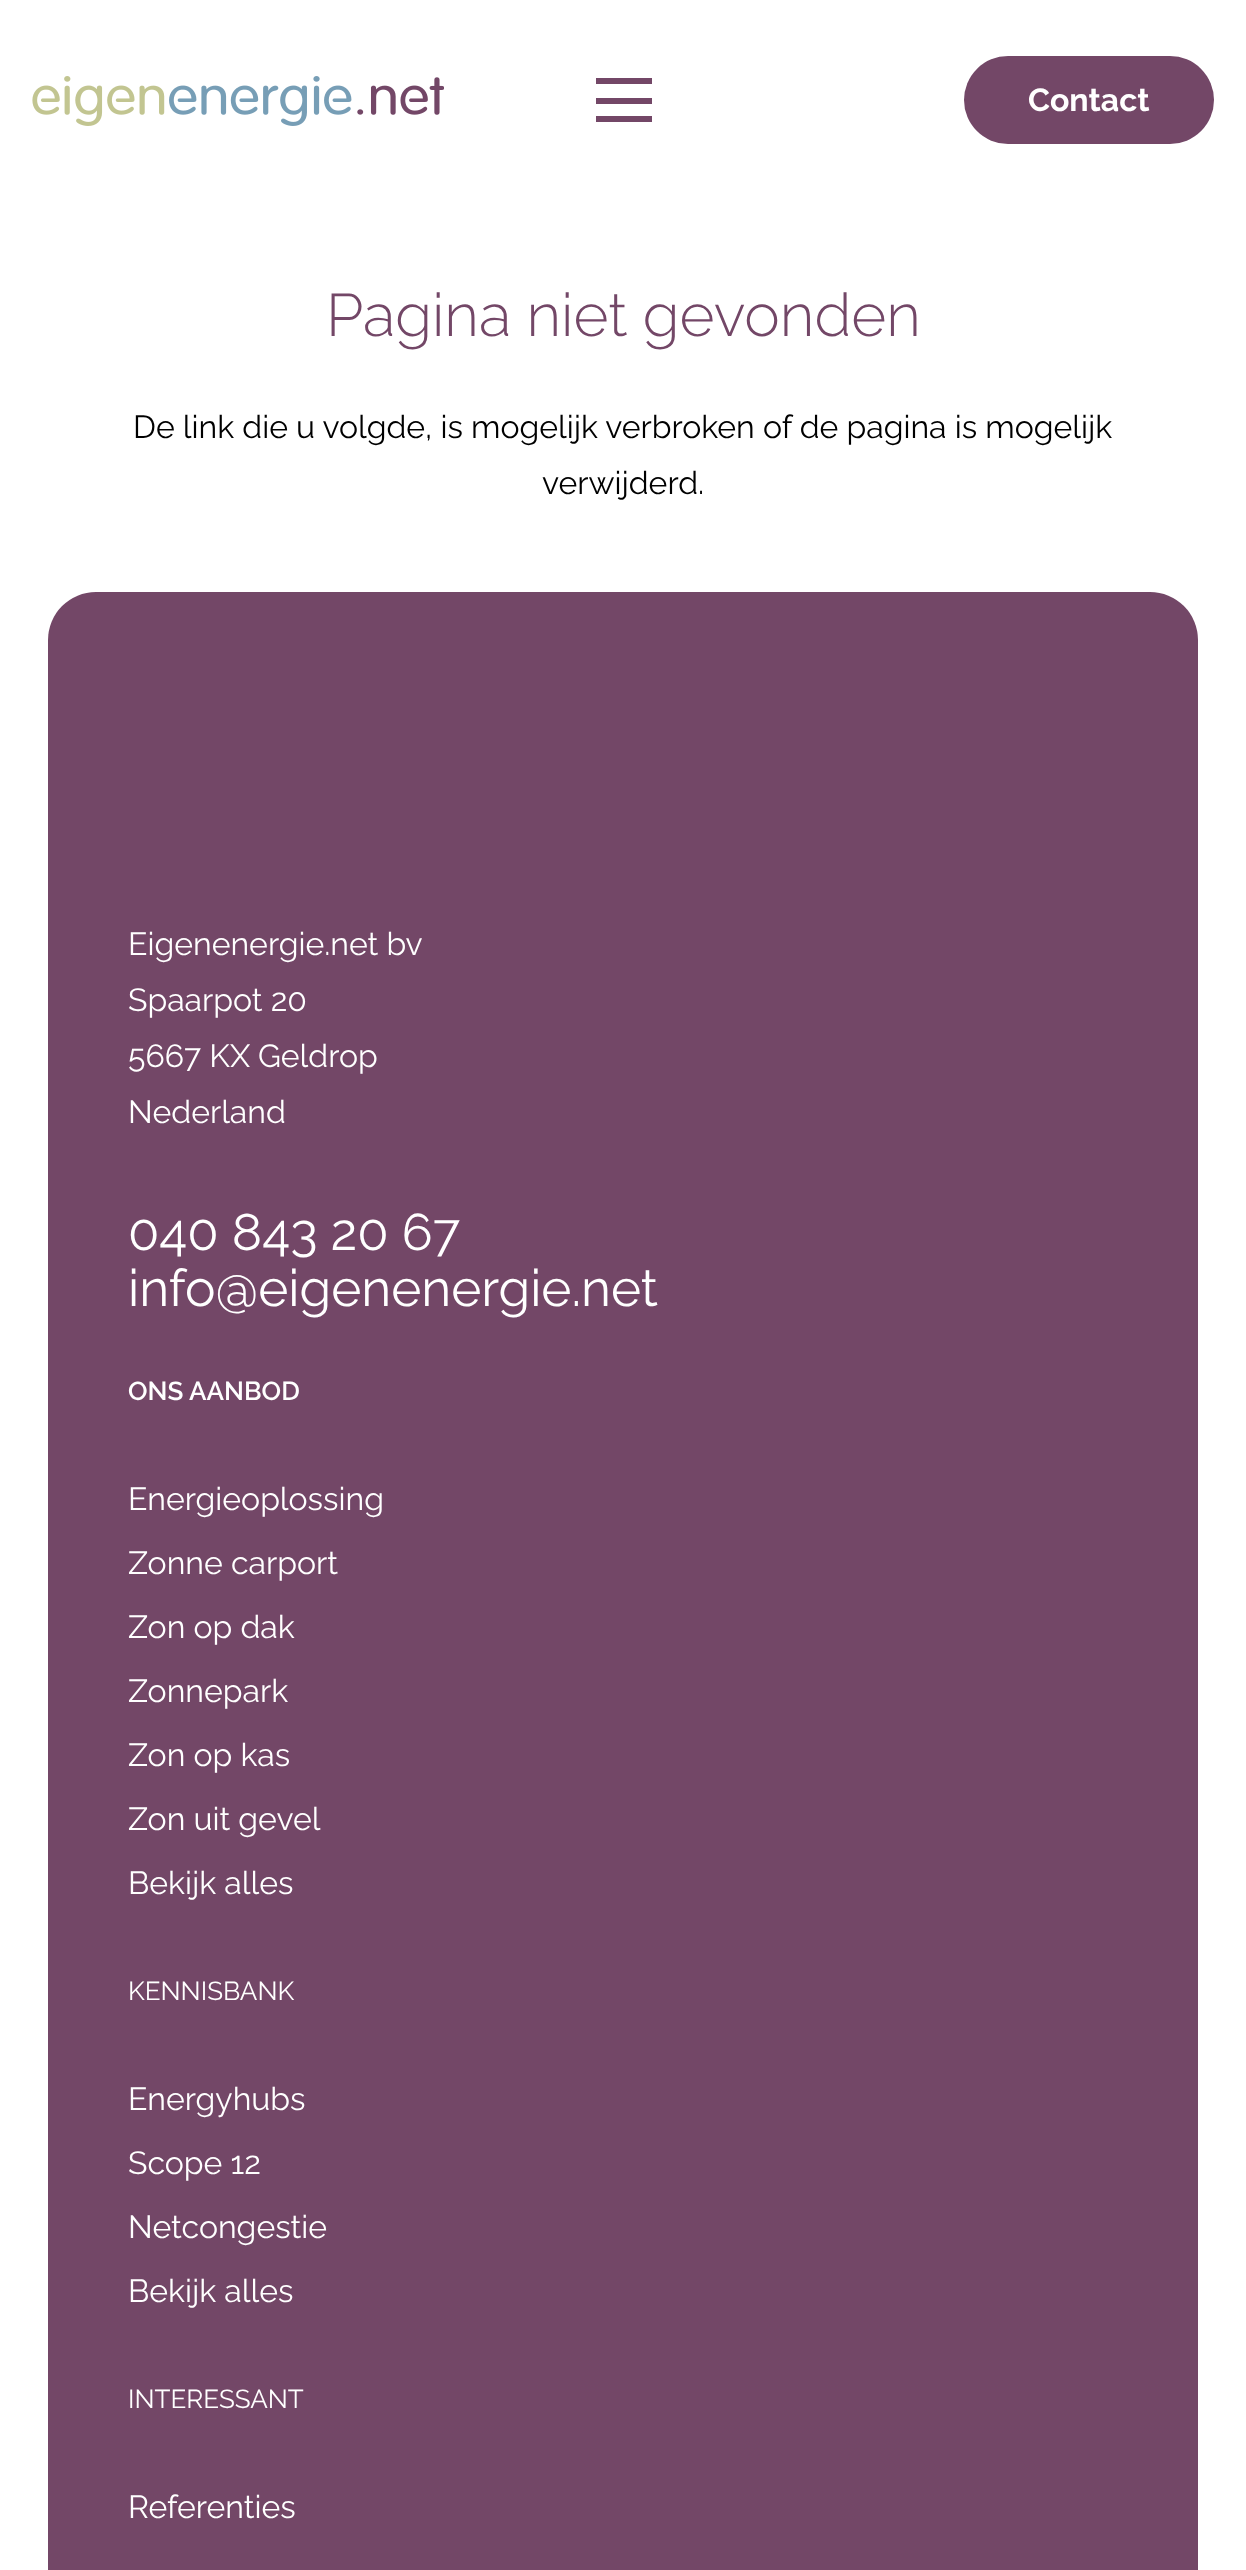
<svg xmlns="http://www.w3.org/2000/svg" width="1246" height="2570">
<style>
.a{font:bold 32px Raleway;fill:#fff}
.b{font:300 60px Raleway;fill:#734767}
.c{font:32px Raleway;fill:#000}
.d{font:32px Raleway;fill:#fff}
.e{font:51.25px Raleway;fill:#fff}
.f{font:600 26px Raleway;fill:#fff}
.g{font:26px Raleway;fill:#fff}
</style>
<rect width="100%" height="100%" fill="#fff"/>
<image href="1.png" x="32" y="76" width="412" height="50"/>
<path fill="#734767" d="M596 98h56v6H596z"/>
<path fill="#734767" d="M596 78h56v6H596z"/>
<path fill="#734767" d="M596 116h56v6H596z"/>
<rect fill="#734767" x="964" y="56" width="250" height="88" rx="44"/>
<rect fill="#734767" x="48" y="592" width="1150" height="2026" rx="48"/>
<text class="a" x="1028" y="111">Contact</text>
<text class="b" x="326" y="336">Pagina niet gevonden</text>
<text class="c" x="133" y="438">De link die u volgde, is mogelijk verbroken of de pagina is mogelijk</text>
<text class="c" x="542" y="494">verwijderd.</text>
<text class="d" x="128" y="955">Eigenenergie.net bv</text>
<text class="d" x="128" y="1011">Spaarpot 20</text>
<text class="d" x="128" y="1067">5667 KX Geldrop</text>
<text class="d" x="128" y="1123">Nederland</text>
<text class="e" x="128" y="1250">040 843 20 67</text>
<text class="e" x="128" y="1306">info@eigenenergie.net</text>
<text class="f" x="128" y="1400">ONS AANBOD</text>
<text class="d" x="128" y="1510">Energieoplossing</text>
<text class="d" x="128" y="1574">Zonne carport</text>
<text class="d" x="128" y="1638">Zon op dak</text>
<text class="d" x="128" y="1702">Zonnepark</text>
<text class="d" x="128" y="1766">Zon op kas</text>
<text class="d" x="128" y="1830">Zon uit gevel</text>
<text class="d" x="128" y="1894">Bekijk alles</text>
<text class="g" x="128" y="2000">KENNISBANK</text>
<text class="d" x="128" y="2110">Energyhubs</text>
<text class="d" x="128" y="2174">Scope 12</text>
<text class="d" x="128" y="2238">Netcongestie</text>
<text class="d" x="128" y="2302">Bekijk alles</text>
<text class="g" x="128" y="2408">INTERESSANT</text>
<text class="d" x="128" y="2518">Referenties</text>
</svg>
